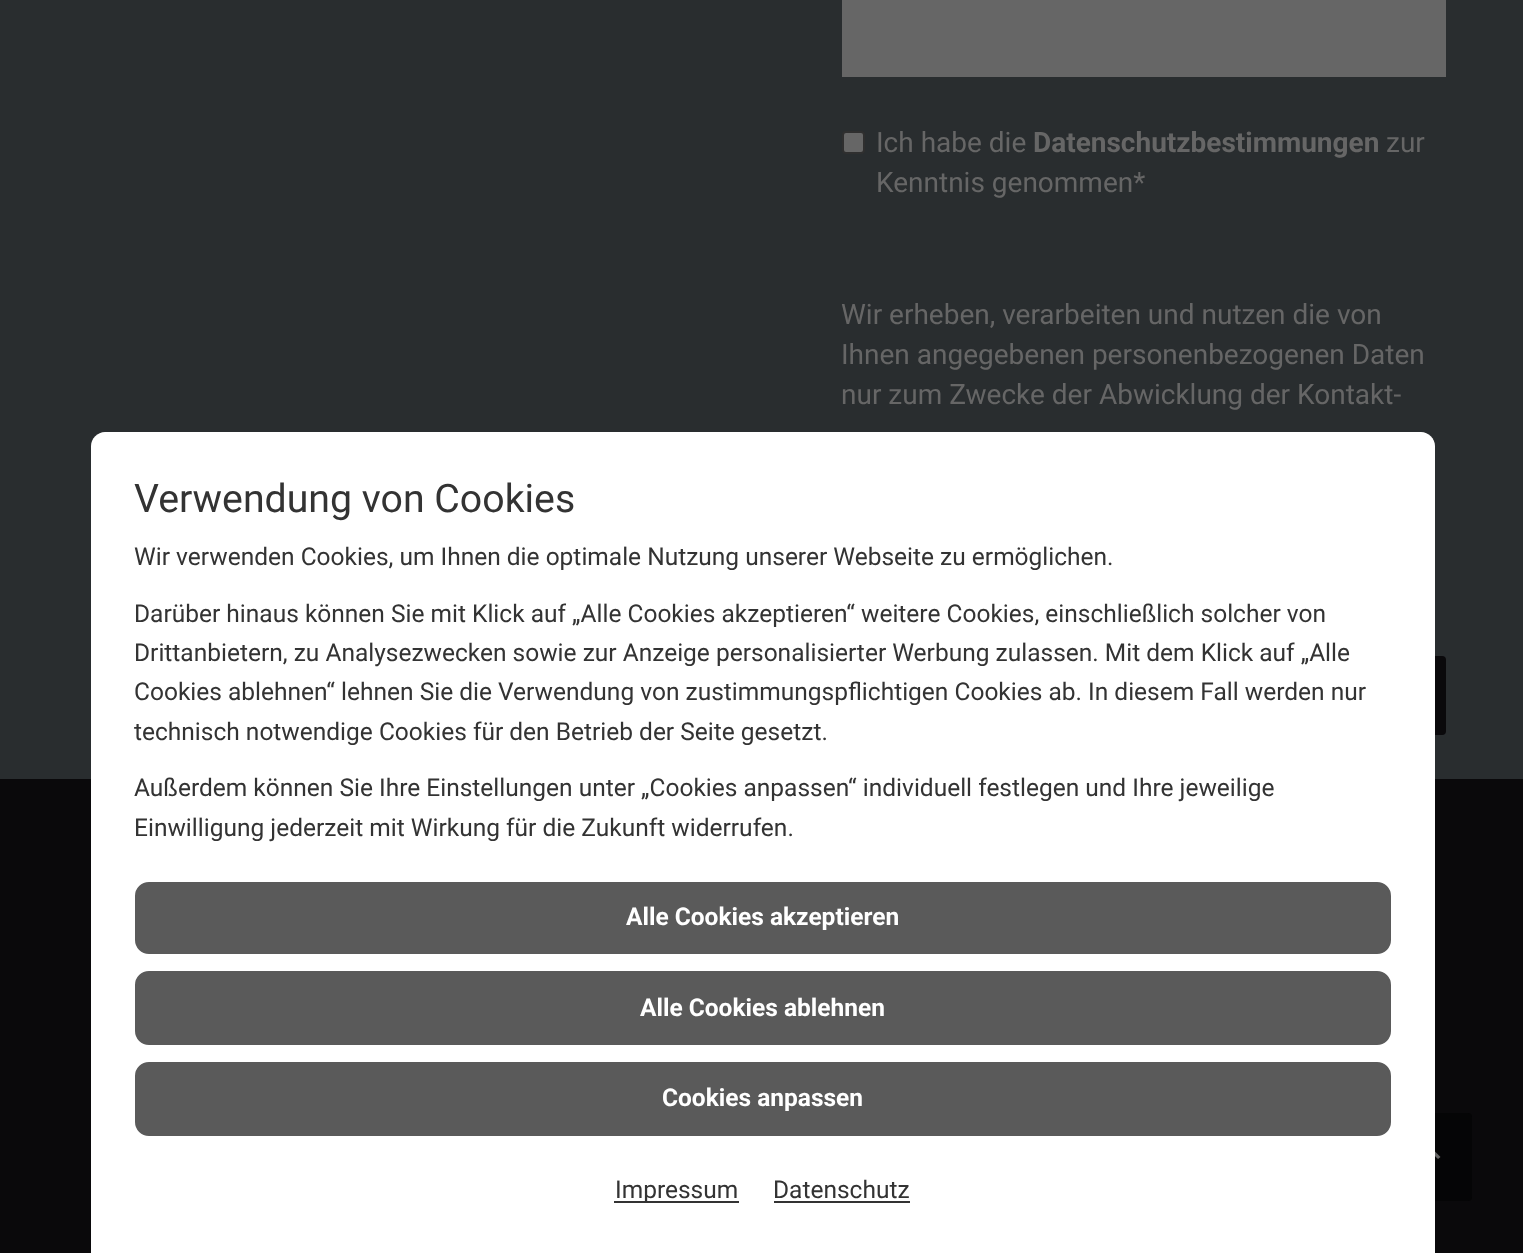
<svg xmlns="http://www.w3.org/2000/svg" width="1523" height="1253">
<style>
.a{font:28px Roboto;fill:#666}
.b{font:bold 28px Roboto;fill:#666}
.c{font:39.25px Roboto;fill:#333}
.d{font:24.5px Roboto;fill:#333}
.e{font:bold 24.5px Roboto;fill:#fff}
</style>
<rect width="100%" height="100%" fill="#292d2f"/>
<path fill="#666" d="M842 0h604v77H842z"/>
<rect fill="#666" stroke="#2f2f2f" stroke-width="2" x="843" y="132" width="21" height="21" rx="3"/>
<rect fill="#0a090b" x="1153" y="656" width="293" height="79" rx="4"/>
<path fill="#0a090b" d="M0 779h1523v474H0z"/>
<rect fill="#050506" x="1384" y="1113" width="88" height="88" rx="4"/>
<path fill="#666" d="M1428 1144.5l12.5 12.5l-2.5 2l-12.5-12z"/>
<path fill="#fff" d="M105 432h1316c7.5 0 14 6.5 14 14v807h-1344v-807c0-7.5 6.5-14 14-14z"/>
<rect fill="#5a5a5a" stroke="#5a5a5a" stroke-width="2" x="136" y="883" width="1254" height="70" rx="13"/>
<rect fill="#5a5a5a" stroke="#5a5a5a" stroke-width="2" x="136" y="972" width="1254" height="72" rx="13"/>
<rect fill="#5a5a5a" stroke="#5a5a5a" stroke-width="2" x="136" y="1063" width="1254" height="72" rx="13"/>
<path fill="#333" d="M614 1201h125v2H614z"/>
<path fill="#333" d="M774 1201h136v2H774z"/>
<text class="a" x="876" y="152">Ich habe die</text>
<text class="b" x="1033" y="152">Datenschutzbestimmungen</text>
<text class="a" x="1386" y="152">zur</text>
<text class="a" x="876" y="192">Kenntnis genommen*</text>
<text class="a" x="841" y="324">Wir erheben, verarbeiten und nutzen die von</text>
<text class="a" x="841" y="364">Ihnen angegebenen personenbezogenen Daten</text>
<text class="a" x="841" y="404">nur zum Zwecke der Abwicklung der Kontakt-</text>
<text class="c" x="134" y="512">Verwendung von Cookies</text>
<text class="d" x="134" y="565">Wir verwenden Cookies, um Ihnen die optimale Nutzung unserer Webseite zu ermöglichen.</text>
<text class="d" x="134" y="622">Darüber hinaus können Sie mit Klick auf „Alle Cookies akzeptieren“ weitere Cookies, einschließlich solcher von</text>
<text class="d" x="134" y="661">Drittanbietern, zu Analysezwecken sowie zur Anzeige personalisierter Werbung zulassen. Mit dem Klick auf „Alle</text>
<text class="d" x="134" y="700">Cookies ablehnen“ lehnen Sie die Verwendung von zustimmungspflichtigen Cookies ab. In diesem Fall werden nur</text>
<text class="d" x="134" y="740">technisch notwendige Cookies für den Betrieb der Seite gesetzt.</text>
<text class="d" x="134" y="796">Außerdem können Sie Ihre Einstellungen unter „Cookies anpassen“ individuell festlegen und Ihre jeweilige</text>
<text class="d" x="134" y="836">Einwilligung jederzeit mit Wirkung für die Zukunft widerrufen.</text>
<text class="e" x="626" y="925">Alle Cookies akzeptieren</text>
<text class="e" x="640" y="1016">Alle Cookies ablehnen</text>
<text class="e" x="662" y="1106">Cookies anpassen</text>
<text class="d" x="615" y="1198">Impressum</text>
<text class="d" x="773" y="1198">Datenschutz</text>
</svg>
